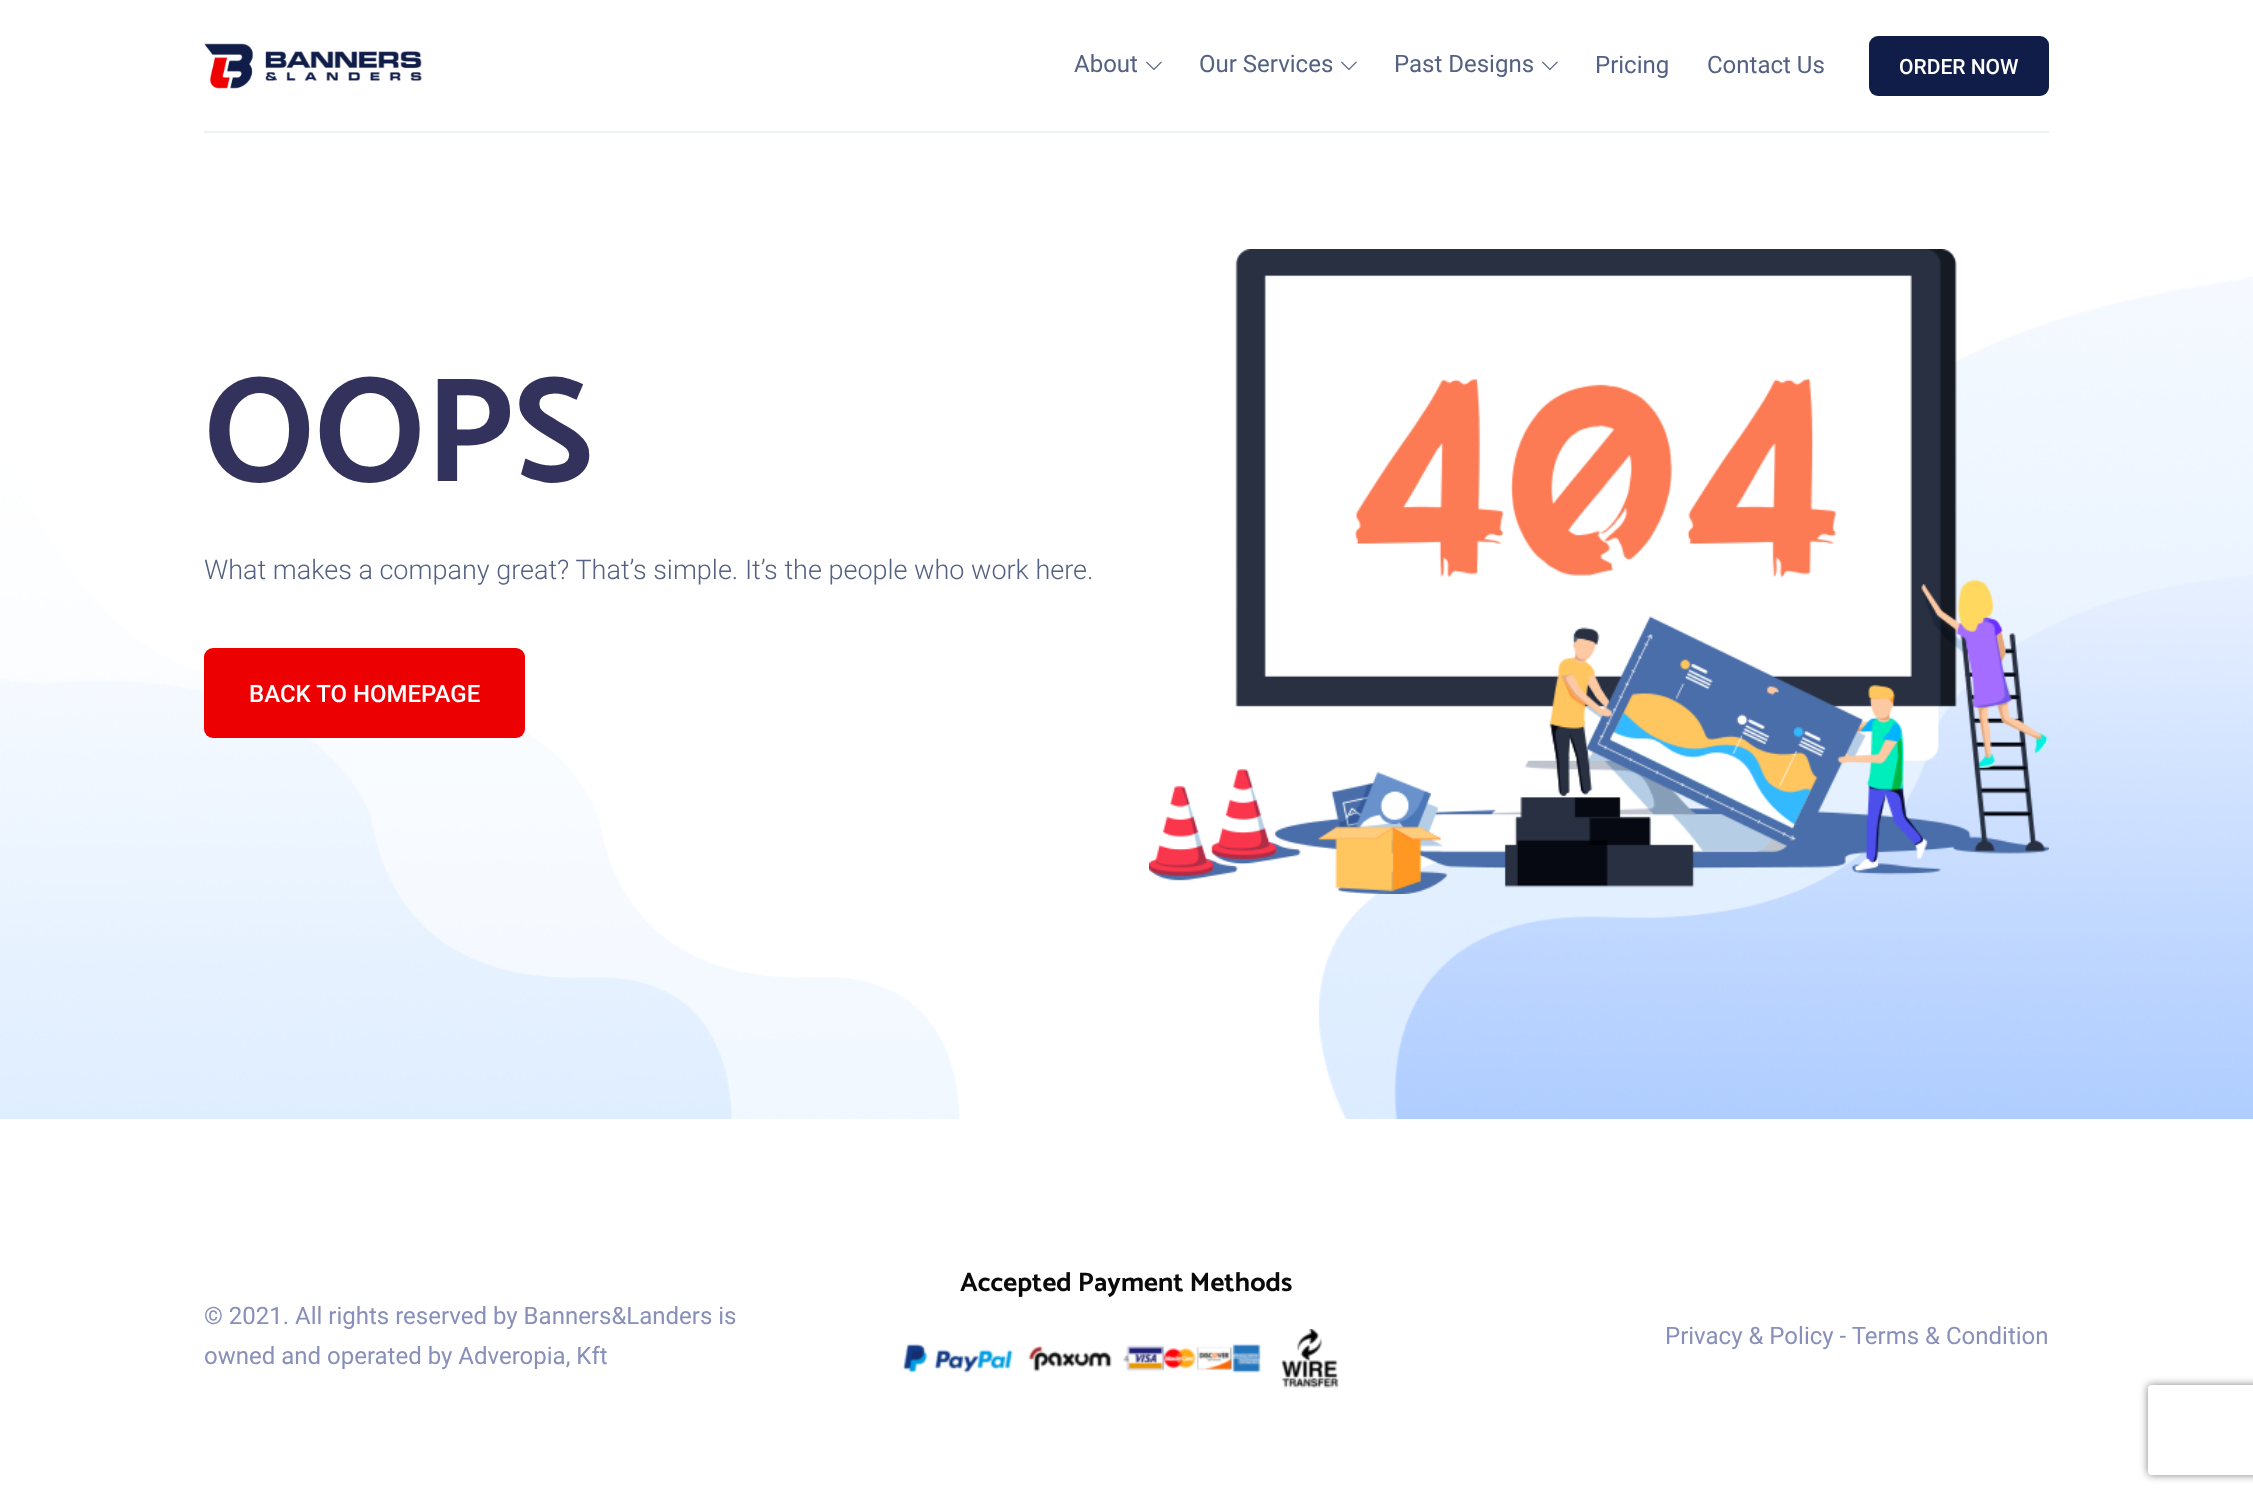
<svg xmlns="http://www.w3.org/2000/svg" width="2253" height="1495">
<style>
.a{font:24px Roboto;fill:#546182}
.b{font:500 21px Roboto;fill:#fff}
.c{font:bold 150px Catamaran;fill:#32325c}
.d{font:300 27px Roboto;fill:#546182}
.e{font:500 24px Roboto;fill:#fff}
.f{font:bold 27px Catamaran;fill:#0a0a0a}
.g{font:24px Roboto;fill:#888fb8}
</style>
<defs>
<clipPath id="clip1"><path d="M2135 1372h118v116h-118zm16 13h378c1.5 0 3 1.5 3 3v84c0 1.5-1.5 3-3 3h-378c-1.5 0-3-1.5-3-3v-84c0-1.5 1.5-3 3-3z" clip-rule="evenodd"/></clipPath>
</defs>
<rect width="100%" height="100%" fill="#fff"/>
<path fill="#ecf2f8" d="M204 131h1845v2H204z"/>
<image href="1.png" x="204" y="43" width="218" height="46"/>
<image href="2.png" x="1146" y="61" width="16" height="10"/>
<image href="2.png" x="1341" y="61" width="16" height="10"/>
<image href="2.png" x="1542" y="61" width="16" height="10"/>
<rect fill="#101d49" x="1869" y="36" width="180" height="60" rx="9"/>
<image href="3.png" x="0" y="276" width="2253" height="843"/>
<rect fill="#ed0001" x="204" y="648" width="321" height="90" rx="9"/>
<image href="4.png" x="1149" y="249" width="900" height="645"/>
<image href="5.png" x="903" y="1329" width="436" height="59"/>
<g clip-path="url(#clip1)">
<rect fill="#808080" filter="blur(4px)" x="2148" y="1385" width="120" height="90" rx="3"/>
</g>
<text class="a" x="1074" y="72">About</text>
<text class="a" x="1199" y="72">Our Services</text>
<text class="a" x="1394" y="72">Past Designs</text>
<text class="a" x="1595" y="73">Pricing</text>
<text class="a" x="1707" y="73">Contact Us</text>
<text class="b" x="1899" y="74">ORDER NOW</text>
<text class="c" x="204" y="481">OOPS</text>
<text class="d" x="204" y="579">What makes a company great? That’s simple. It’s the people who work here.</text>
<text class="e" x="249" y="702">BACK TO HOMEPAGE</text>
<text class="f" x="960" y="1291">Accepted Payment Methods</text>
<text class="g" x="204" y="1324">© 2021. All rights reserved by Banners&amp;Landers is</text>
<text class="g" x="204" y="1364">owned and operated by Adveropia, Kft</text>
<text class="g" x="1665" y="1344">Privacy &amp; Policy - Terms &amp; Condition</text>
</svg>
